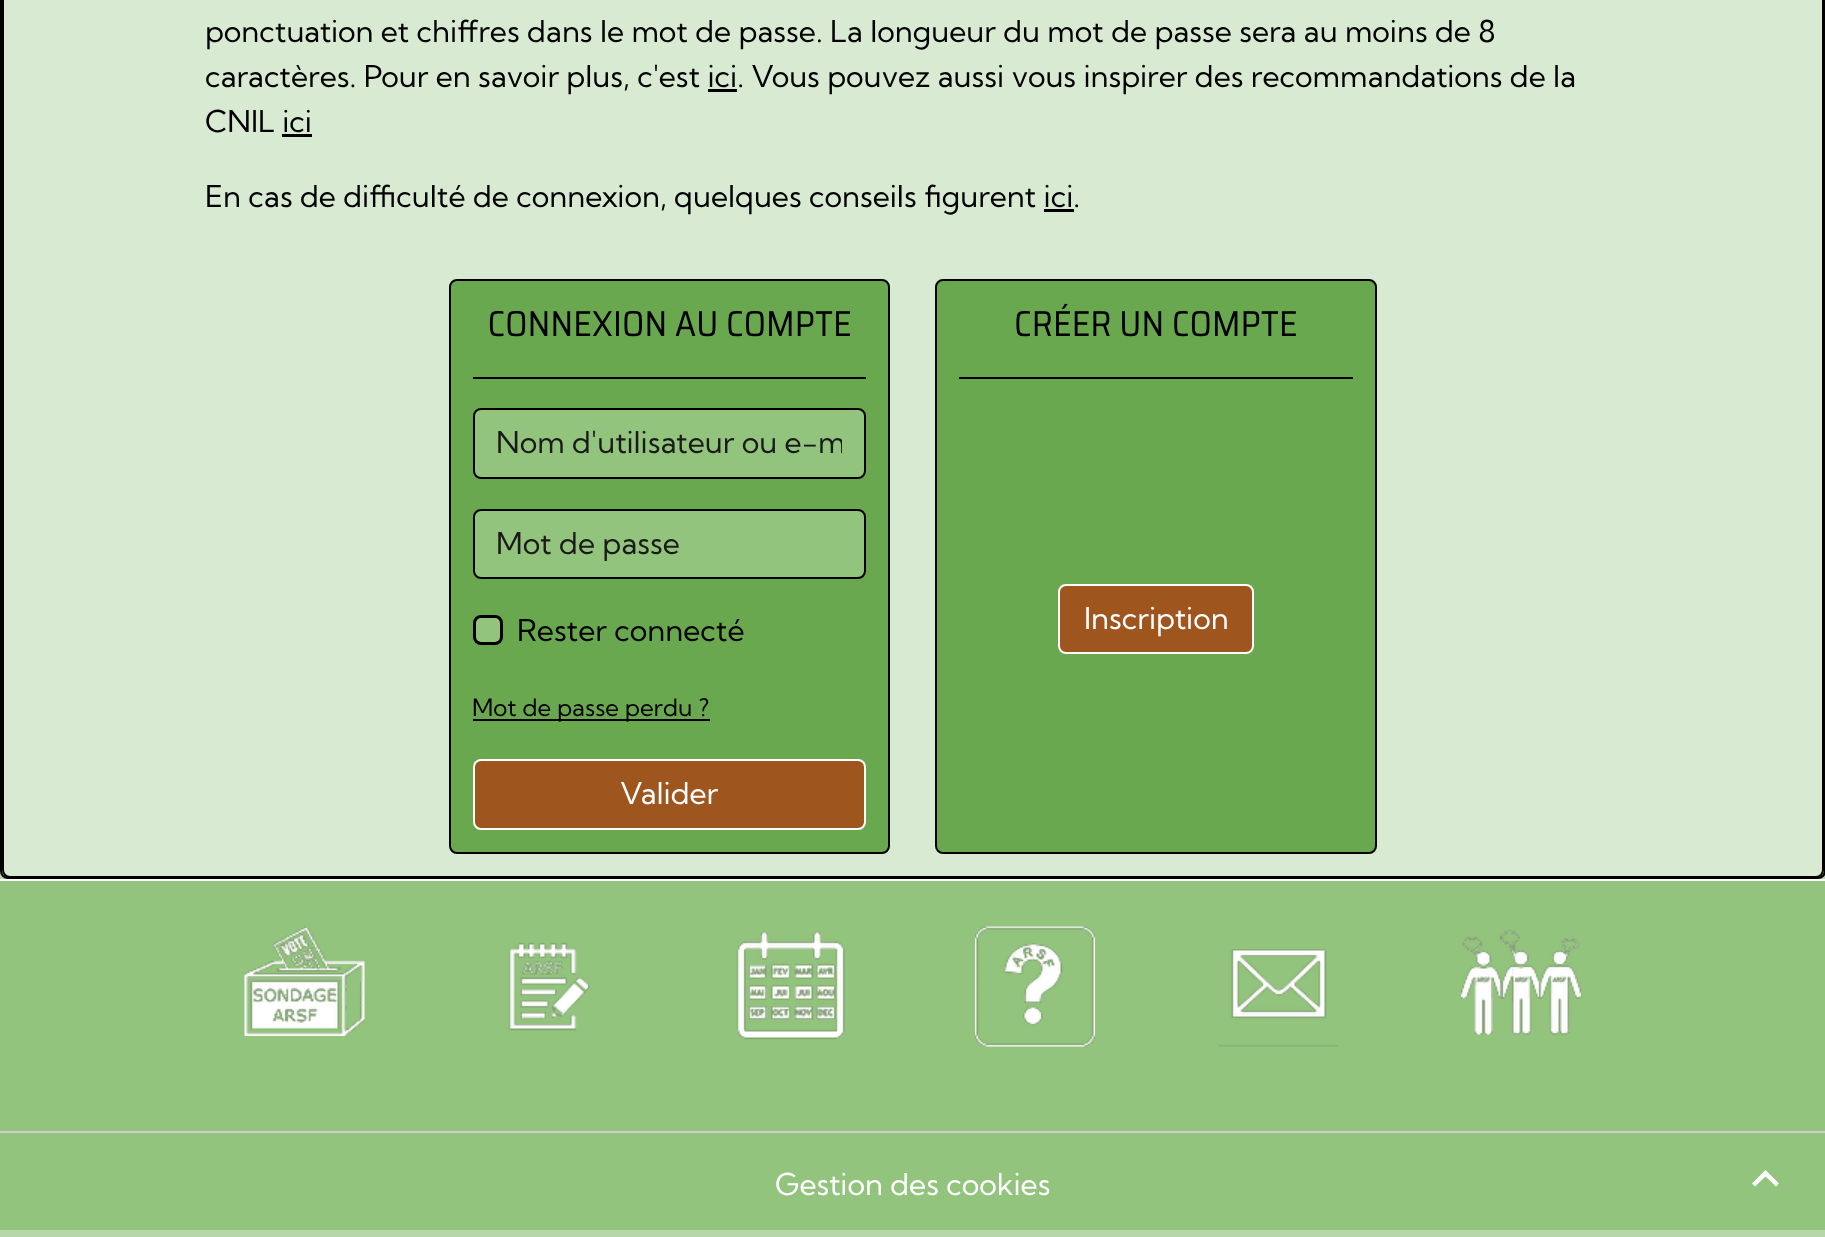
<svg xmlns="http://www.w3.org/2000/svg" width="1825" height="1237">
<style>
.a{font:30px Kumbh Sans;fill:#000}
.b{font:30px Kumbh Sans;fill:#1a1a1a}
.c{font:24px Kumbh Sans;fill:#000}
.d{font:30px Kumbh Sans;fill:#fff}
</style>
<defs>
<clipPath id="clip1"><path d="M497 423h345v38H497z"/></clipPath>
<clipPath id="clip2"><path d="M497 524h345v37H497z"/></clipPath>
</defs>
<rect width="100%" height="100%" fill="#b6d7a8"/>
<path fill="none" stroke="#000" stroke-width="2" d="M1-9h1824v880c0 4-3 7-7 7h-1810c-4 0-7-3-7-7z"/>
<rect fill="#d9ead3" stroke="#000" stroke-width="2" x="3" y="-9" width="1820" height="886" rx="7"/>
<path fill="#000" d="M708 89h29v3H708z"/>
<path fill="#000" d="M282 134h30v3H282z"/>
<path fill="#000" d="M1044 209h30v3H1044z"/>
<rect fill="#6aa84f" stroke="#000" stroke-width="2" x="450" y="280" width="439" height="573" rx="7"/>
<path fill="#000" d="M473 377h393v2H473z"/>
<image href="1.png" x="489" y="310" width="361" height="27"/>
<rect fill="#93c47d" stroke="#000" stroke-width="2" x="474" y="409" width="391" height="69" rx="7"/>
<rect fill="#93c47d" stroke="#000" stroke-width="2" x="474" y="510" width="391" height="68" rx="7"/>
<rect fill="#93c47d" stroke="#000" stroke-width="3" x="474.5" y="616.5" width="27" height="27" rx="6.5"/>
<path fill="#000" d="M473 719h237v2H473z"/>
<rect fill="#9f551e" stroke="#fff" stroke-width="2" x="474" y="760" width="391" height="69" rx="7"/>
<rect fill="#6aa84f" stroke="#000" stroke-width="2" x="936" y="280" width="440" height="573" rx="7"/>
<path fill="#000" d="M959 377h394v2H959z"/>
<image href="2.png" x="1016" y="303" width="280" height="34"/>
<rect fill="#9f551e" stroke="#fff" stroke-width="2" x="1059" y="585" width="194" height="68" rx="7"/>
<path fill="#93c47d" d="M0 881h1825v349H0z"/>
<path fill="#fff" d="M0 879h1825v2H0z"/>
<image href="3.png" x="244" y="926" width="121" height="110"/>
<image href="4.png" x="508" y="942" width="82" height="89"/>
<image href="5.png" x="736" y="931" width="109" height="109"/>
<image href="6.png" x="975" y="926" width="120" height="121"/>
<image href="7.png" x="1218" y="949" width="120" height="98"/>
<image href="8.png" x="1461" y="929" width="120" height="106"/>
<path fill="#ccc" d="M0 1131h1825v2H0z"/>
<path fill="#fff" d="M1765.5 1170l13.5 13.5l-3 3l-10.5-10l-10.5 10l-3-3z"/>
<text class="a" x="205" y="42">ponctuation et chiffres dans le mot de passe. La longueur du mot de passe sera au moins de 8</text>
<text class="a" x="205" y="87">caractères. Pour en savoir plus, c'est ici. Vous pouvez aussi vous inspirer des recommandations de la</text>
<text class="a" x="205" y="132">CNIL ici</text>
<text class="a" x="205" y="207">En cas de difficulté de connexion, quelques conseils figurent ici.</text>
<g clip-path="url(#clip1)">
<text class="b" x="496" y="453">Nom d'utilisateur ou e-m</text>
</g>
<g clip-path="url(#clip2)">
<text class="b" x="496" y="554">Mot de passe</text>
</g>
<text class="a" x="517" y="641">Rester connecté</text>
<text class="c" x="472" y="716">Mot de passe perdu ?</text>
<text class="d" x="620" y="804">Valider</text>
<text class="d" x="1084" y="629">Inscription</text>
<text class="d" x="775" y="1195">Gestion des cookies</text>
</svg>
